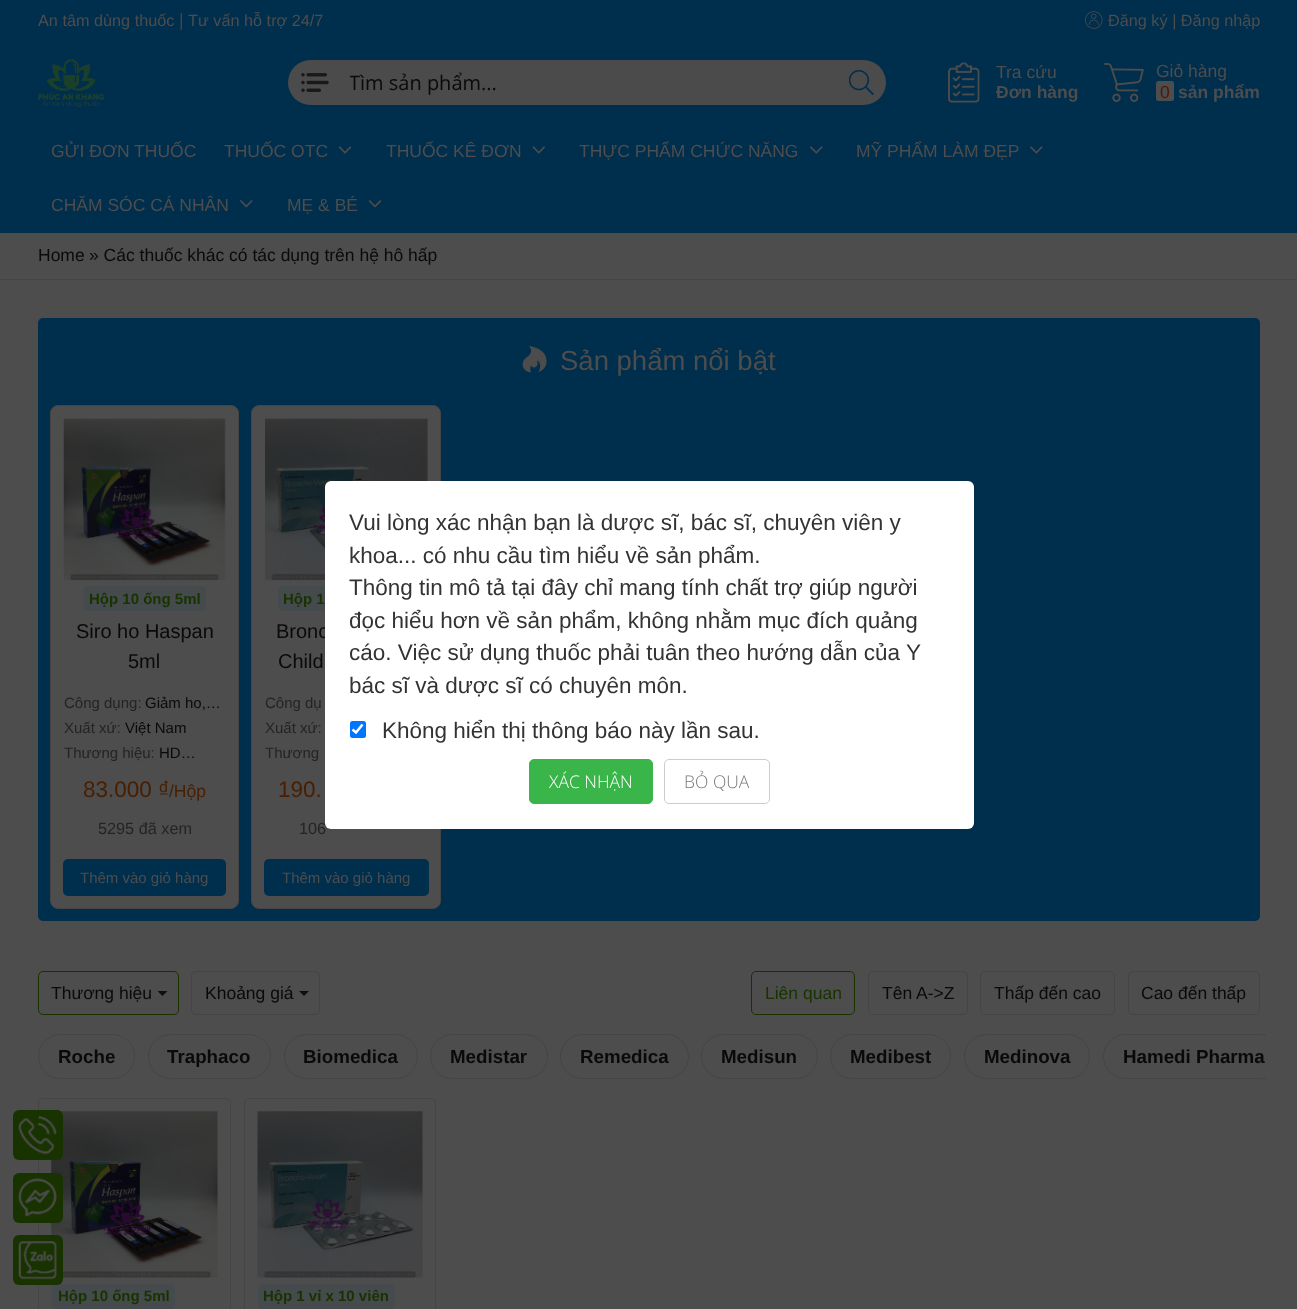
<svg xmlns="http://www.w3.org/2000/svg" width="1297" height="1309">
<style>
.a{font:16.25px Liberation Sans;fill:#4d4d4d}
.b{font:17.5px Liberation Sans;fill:#474747}
.c{font:20px Open Sans;fill:#0a0a0a}
.d{font:17.5px Liberation Sans;fill:#4d4d4d}
.e{font:bold 17.5px Liberation Sans;fill:#4d4d4d}
.f{font:17.5px Liberation Sans;fill:#4d1a0a}
.g{font:17.5px Liberation Sans;fill:#0a0a0a}
.h{font:27.5px Liberation Sans;fill:#4d4d4d}
.i{font:bold 15px Liberation Sans;fill:#193300}
.j{font:20px Liberation Sans;fill:#0a0a0a}
.k{font:15px Liberation Sans;fill:#242424}
.l{font:15px Liberation Sans;fill:#0a0a0a}
.m{font:22.5px Liberation Sans;fill:#481f00}
.n{font:17.5px Liberation Sans;fill:#481f00}
.o{font:16.25px Liberation Sans;fill:#242424}
.p{font:15px Liberation Sans;fill:#4d4d4d}
.q{font:22.5px Liberation Sans;fill:#333}
.r{font:300 17.5px Open Sans;fill:#fff}
.s{font:300 17.5px Open Sans;fill:#777}
.t{font:17.5px Liberation Sans;fill:#193300}
.u{font:bold 18.75px Liberation Sans;fill:#0a0a0a}
</style>
<defs>
<clipPath id="clip1"><path d="M31 1034h1235v45H31z"/></clipPath>
<clipPath id="clip2"><path d="M350 69h480v27H350z"/></clipPath>
</defs>
<rect width="100%" height="100%" fill="#4d4d4d"/>
<path fill="#002e4d" d="M0 0h1297v233H0z"/>
<image href="1.png" x="1085" y="11" width="18" height="18"/>
<image href="2.png" x="38" y="59" width="67" height="49"/>
<rect fill="#4b4b4b" x="288" y="60" width="598" height="45" rx="22.5"/>
<image href="3.png" x="301" y="73" width="28" height="19"/>
<image href="4.png" x="849" y="70" width="25" height="25"/>
<image href="5.png" x="947" y="62" width="33" height="41"/>
<image href="6.png" x="1104" y="63" width="40" height="39"/>
<rect fill="#4d4d4d" x="1156" y="81" width="18" height="20" rx="2.5"/>
<image href="7.png" x="338" y="146" width="14" height="8"/>
<image href="8.png" x="532" y="146" width="13" height="8"/>
<image href="9.png" x="810" y="146" width="13" height="8"/>
<image href="9.png" x="1030" y="146" width="13" height="8"/>
<image href="10.png" x="240" y="200" width="13" height="8"/>
<image href="11.png" x="368" y="200" width="14" height="8"/>
<path fill="#454545" d="M0 279h1297v1H0z"/>
<rect fill="#002e4d" x="38" y="318" width="1222" height="603" rx="5"/>
<image href="12.png" x="522" y="346" width="25" height="27"/>
<rect fill="#4d4d4d" stroke="#454545" x="50.5" y="405.5" width="188" height="503" rx="7.5"/>
<image href="13.png" x="63" y="418" width="163" height="163"/>
<rect fill="#454a4d" x="83" y="586" width="123" height="25" rx="5"/>
<rect fill="#002e4d" x="63" y="859" width="163" height="37" rx="5"/>
<rect fill="#4d4d4d" stroke="#454545" x="251.5" y="405.5" width="189" height="503" rx="7.5"/>
<image href="14.png" x="265" y="418" width="163" height="163"/>
<rect fill="#454a4d" x="278" y="586" width="137" height="25" rx="5"/>
<rect fill="#002e4d" x="264" y="859" width="165" height="37" rx="5"/>
<rect fill="none" stroke="#454545" x="38.5" y="1098.5" width="192" height="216" rx="4.5"/>
<image href="18.png" x="51" y="1111" width="167" height="167"/>
<rect fill="#193300" x="13" y="1110" width="50" height="50" rx="6"/>
<image href="15.png" x="18" y="1116" width="39" height="39"/>
<rect fill="#193300" x="13" y="1173" width="50" height="50" rx="6"/>
<image href="16.png" x="18" y="1178" width="39" height="39"/>
<rect fill="#454a4d" x="51" y="1284" width="124" height="25" rx="5"/>
<rect fill="#193300" x="13" y="1235" width="50" height="50" rx="6"/>
<image href="17.png" x="18" y="1241" width="39" height="39"/>
<rect fill="none" stroke="#193300" x="38.5" y="971.5" width="140" height="43" rx="4.5"/>
<path fill="#0f0f0f" d="M157.5 991h10l-5 5z"/>
<rect fill="none" stroke="#454545" x="191.5" y="971.5" width="128" height="43" rx="4.5"/>
<path fill="#0f0f0f" d="M299 991h10l-5 5z"/>
<rect fill="none" stroke="#193300" x="751.5" y="971.5" width="103" height="43" rx="4.5"/>
<rect fill="none" stroke="#454545" x="868.5" y="971.5" width="99" height="43" rx="4.5"/>
<rect fill="none" stroke="#454545" x="980.5" y="971.5" width="134" height="43" rx="4.5"/>
<rect fill="none" stroke="#454545" x="1128.5" y="971.5" width="131" height="43" rx="4.5"/>
<rect fill="none" stroke="#454545" x="38.5" y="1034.5" width="96" height="44" rx="22"/>
<rect fill="none" stroke="#454545" x="148.5" y="1034.5" width="122" height="44" rx="22"/>
<rect fill="none" stroke="#454545" x="284.5" y="1034.5" width="133" height="44" rx="22"/>
<rect fill="none" stroke="#454545" x="430.5" y="1034.5" width="117" height="44" rx="22"/>
<rect fill="none" stroke="#454545" x="560.5" y="1034.5" width="128" height="44" rx="22"/>
<rect fill="none" stroke="#454545" x="701.5" y="1034.5" width="116" height="44" rx="22"/>
<rect fill="none" stroke="#454545" x="830.5" y="1034.5" width="120" height="44" rx="22"/>
<rect fill="none" stroke="#454545" x="964.5" y="1034.5" width="125" height="44" rx="22"/>
<g clip-path="url(#clip1)">
<rect fill="none" stroke="#454545" x="1103.5" y="1034.5" width="180" height="44" rx="22"/>
</g>
<rect fill="none" stroke="#454545" x="244.5" y="1098.5" width="191" height="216" rx="4.5"/>
<image href="19.png" x="257" y="1111" width="166" height="167"/>
<rect fill="#454a4d" x="258" y="1284" width="137" height="25" rx="5"/>
<text class="a" x="38" y="26">An tâm dùng thuốc</text>
<text class="b" x="179" y="26">|</text>
<text class="a" x="188" y="26">Tư vấn hỗ trợ 24/7</text>
<text class="a" x="1108" y="26">Đăng ký | Đăng nhập</text>
<g clip-path="url(#clip2)">
<text class="c" x="349" y="90">Tìm sản phẩm...</text>
</g>
<text class="d" x="996" y="78">Tra cứu</text>
<text class="e" x="996" y="98">Đơn hàng</text>
<text class="d" x="1156" y="77">Giỏ hàng</text>
<text class="f" x="1160" y="98">0</text>
<text class="e" x="1178" y="98">sản phẩm</text>
<text class="d" x="51" y="157">GỬI ĐƠN THUỐC</text>
<text class="d" x="224" y="157">THUỐC OTC</text>
<text class="d" x="386" y="157">THUỐC KÊ ĐƠN</text>
<text class="d" x="579" y="157">THỰC PHẨM CHỨC NĂNG</text>
<text class="d" x="856" y="157">MỸ PHẨM LÀM ĐẸP</text>
<text class="d" x="51" y="211">CHĂM SÓC CÁ NHÂN</text>
<text class="d" x="287" y="211">MẸ &amp; BÉ</text>
<text class="g" x="38" y="261">Home</text>
<text class="g" x="89" y="261">» Các thuốc khác có tác dụng trên hệ hô hấp</text>
<text class="h" x="560" y="370">Sản phẩm nổi bật</text>
<text class="i" x="89" y="604">Hộp 10 ống 5ml</text>
<text class="j" x="76" y="638">Siro ho Haspan</text>
<text class="j" x="128" y="668">5ml</text>
<text class="k" x="64" y="708">Công dụng:</text>
<text class="l" x="145" y="708">Giảm ho,…</text>
<text class="k" x="64" y="733">Xuất xứ:</text>
<text class="l" x="125" y="733">Việt Nam</text>
<text class="k" x="64" y="758">Thương hiệu:</text>
<text class="l" x="159" y="758">HD…</text>
<text class="m" x="83" y="797">83.000 ₫</text>
<text class="n" x="169" y="797">/Hộp</text>
<text class="o" x="98" y="834">5295 đã xem</text>
<text class="p" x="80" y="883">Thêm vào giỏ hàng</text>
<text class="i" x="283" y="604">Hộp 1</text>
<text class="j" x="276" y="638">Bronc</text>
<text class="j" x="278" y="668">Child</text>
<text class="k" x="265" y="708">Công dụ</text>
<text class="k" x="265" y="733">Xuất xứ:</text>
<text class="k" x="265" y="758">Thương</text>
<text class="m" x="278" y="797">190.</text>
<text class="o" x="299" y="834">106</text>
<text class="p" x="282" y="883">Thêm vào giỏ hàng</text>
<rect fill="#fff" x="325" y="481" width="649" height="348" rx="6"/>
<text class="q" x="349" y="530">Vui lòng xác nhận bạn là dược sĩ, bác sĩ, chuyên viên y</text>
<text class="q" x="349" y="563">khoa... có nhu cầu tìm hiểu về sản phẩm.</text>
<text class="q" x="349" y="595">Thông tin mô tả tại đây chỉ mang tính chất trợ giúp người</text>
<text class="q" x="349" y="628">đọc hiểu hơn về sản phẩm, không nhằm mục đích quảng</text>
<text class="q" x="349" y="660">cáo. Việc sử dụng thuốc phải tuân theo hướng dẫn của Y</text>
<text class="q" x="349" y="693">bác sĩ và dược sĩ có chuyên môn.</text>
<rect fill="#0075ff" x="350" y="721" width="16" height="17" rx="2.5"/>
<path fill="none" stroke="#fff" stroke-width="2.6" d="M352.5 729.5l3.5 3l6.5-8"/>
<text class="q" x="382" y="738">Không hiển thị thông báo này lần sau.</text>
<rect fill="#39b54a" stroke="#39b54a" x="529.5" y="759.5" width="123" height="44" rx="4.5"/>
<text class="r" x="549" y="788">XÁC NHẬN</text>
<rect fill="none" stroke="#ccc" x="664.5" y="759.5" width="105" height="44" rx="4.5"/>
<text class="s" x="684" y="788">BỎ QUA</text>
<text class="g" x="51" y="999">Thương hiệu</text>
<text class="g" x="205" y="999">Khoảng giá</text>
<text class="t" x="765" y="999">Liên quan</text>
<text class="g" x="882" y="999">Tên A-&gt;Z</text>
<text class="g" x="994" y="999">Thấp đến cao</text>
<text class="g" x="1141" y="999">Cao đến thấp</text>
<text class="u" x="58" y="1063">Roche</text>
<text class="u" x="167" y="1063">Traphaco</text>
<text class="u" x="303" y="1063">Biomedica</text>
<text class="u" x="450" y="1063">Medistar</text>
<text class="u" x="580" y="1063">Remedica</text>
<text class="u" x="721" y="1063">Medisun</text>
<text class="u" x="850" y="1063">Medibest</text>
<text class="u" x="984" y="1063">Medinova</text>
<text class="u" x="1123" y="1063">Hamedi Pharma</text>
<text class="i" x="58" y="1301">Hộp 10 ống 5ml</text>
<text class="i" x="263" y="1301">Hộp 1 vỉ x 10 viên</text>
</svg>
